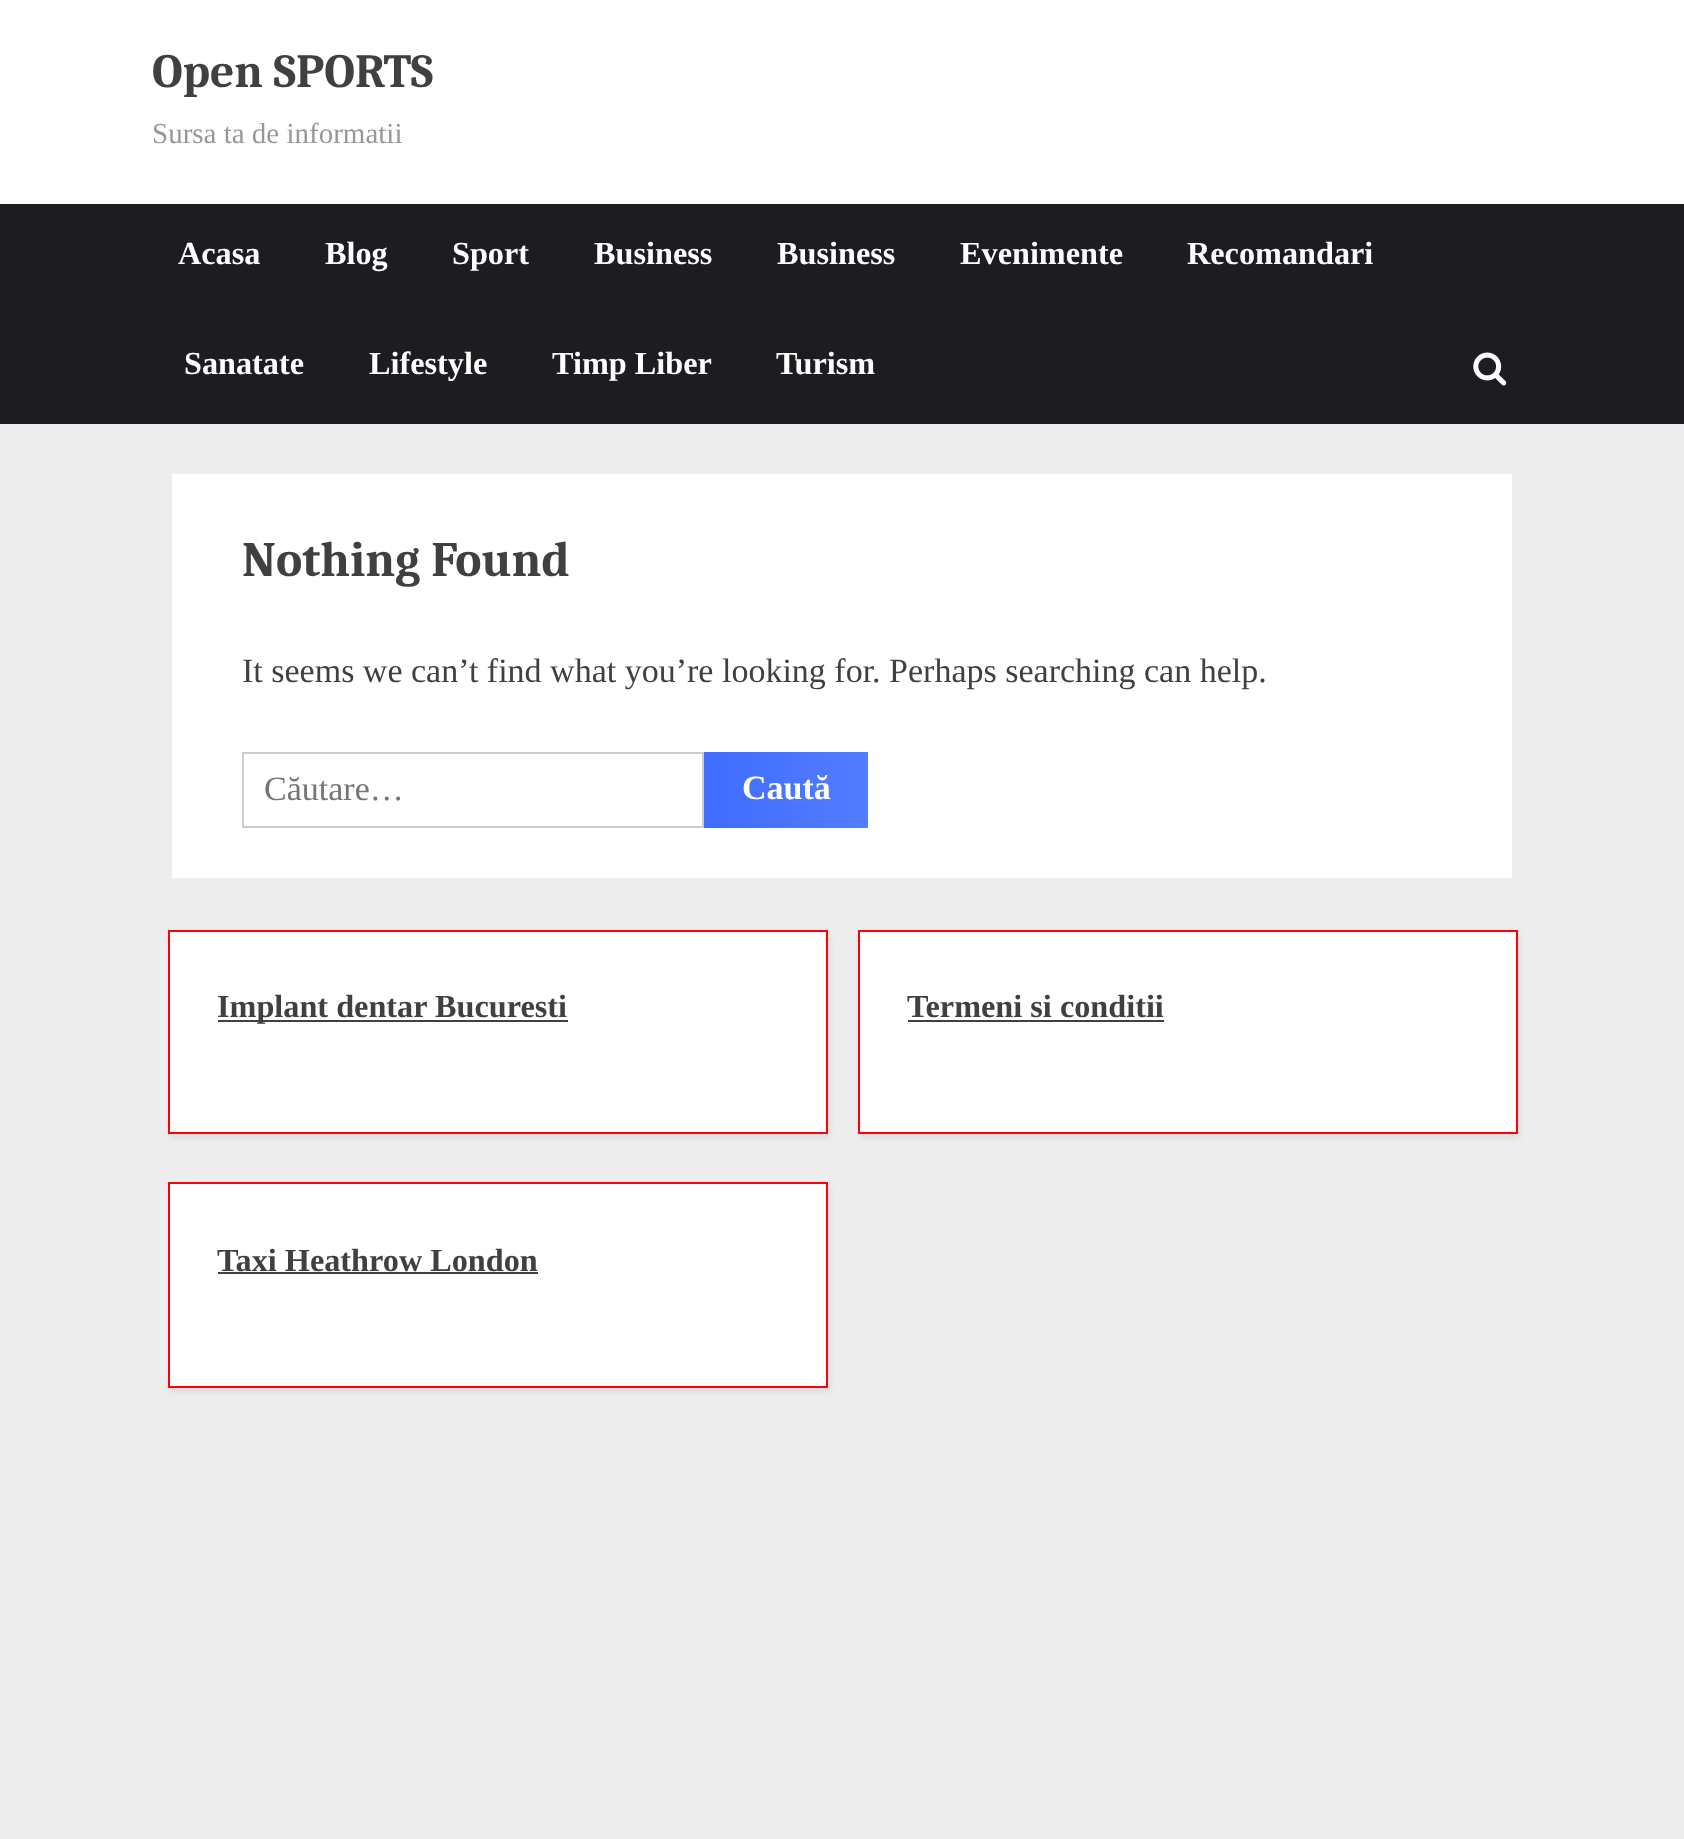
<svg xmlns="http://www.w3.org/2000/svg" width="1684" height="1839">
<style>
.a{font:bold 47.5px Caladea;fill:#404040}
.b{font:29px Liberation Serif;fill:#979797}
.c{font:bold 32.25px Liberation Serif;fill:#fff}
.d{font:bold 49.5px Caladea;fill:#404040}
.e{font:34px Liberation Serif;fill:#404040}
.f{font:34px Liberation Serif;fill:#757575}
.g{font:bold 34px Liberation Serif;fill:#fff}
.h{font:bold 32.25px Liberation Serif;fill:#404040}
</style>
<defs>
<linearGradient id="g1" gradientUnits="userSpaceOnUse" x1="396" y1="790" x2="708" y2="790"><stop offset="0" stop-color="#406dff"/><stop offset="0.51" stop-color="#537cff"/><stop offset="1" stop-color="#406dff"/></linearGradient>
<linearGradient id="g2" gradientUnits="userSpaceOnUse" x1="708" y1="790" x2="1020" y2="790"><stop offset="0" stop-color="#406dff"/><stop offset="0.51" stop-color="#537cff"/><stop offset="1" stop-color="#406dff"/></linearGradient>
</defs>
<rect width="100%" height="100%" fill="#ededed"/>
<path fill="#fff" d="M0 0h1684v204H0z"/>
<path fill="#1c1c21" d="M0 204h1684v220H0z"/>
<image href="1.png" x="1473" y="352" width="34" height="34"/>
<path fill="#fff" d="M172 474h1340v404H172z"/>
<path fill="none" stroke="#ccc" stroke-width="2" d="M243 753h460v74H243z"/>
<path fill="url(#g1)" d="M704 752h4v76H704z"/>
<path fill="url(#g2)" d="M708 752h160v76H708z"/>
<path fill="#00000012" filter="blur(3px)" d="M170 934h660v204H170z"/>
<path fill="#fff" stroke="#ff0008" stroke-width="2" d="M169 931h658v202H169z"/>
<path fill="#404040" d="M218 1020h350v2H218z"/>
<path fill="#00000012" filter="blur(3px)" d="M170 1186h660v206H170z"/>
<path fill="#fff" stroke="#ff0008" stroke-width="2" d="M169 1183h658v204H169z"/>
<path fill="#404040" d="M218 1272h320v2H218z"/>
<path fill="#00000012" filter="blur(3px)" d="M860 934h660v204H860z"/>
<path fill="#fff" stroke="#ff0008" stroke-width="2" d="M859 931h658v202H859z"/>
<path fill="#404040" d="M908 1020h256v2H908z"/>
<text class="a" x="152" y="87">Open SPORTS</text>
<text class="b" x="152" y="143">Sursa ta de informatii</text>
<text class="c" x="178" y="264">Acasa</text>
<text class="c" x="325" y="264">Blog</text>
<text class="c" x="452" y="264">Sport</text>
<text class="c" x="594" y="264">Business</text>
<text class="c" x="777" y="264">Business</text>
<text class="c" x="960" y="264">Evenimente</text>
<text class="c" x="1187" y="264">Recomandari</text>
<text class="c" x="184" y="374">Sanatate</text>
<text class="c" x="369" y="374">Lifestyle</text>
<text class="c" x="552" y="374">Timp Liber</text>
<text class="c" x="776" y="374">Turism</text>
<text class="d" x="242" y="576">Nothing Found</text>
<text class="e" x="242" y="682">It seems we can’t find what you’re looking for. Perhaps searching can help.</text>
<text class="f" x="264" y="800">Căutare…</text>
<text class="g" x="742" y="799">Caută</text>
<text class="h" x="217" y="1017">Implant dentar Bucuresti</text>
<text class="h" x="217" y="1271">Taxi Heathrow London</text>
<text class="h" x="907" y="1017">Termeni si conditii</text>
</svg>
